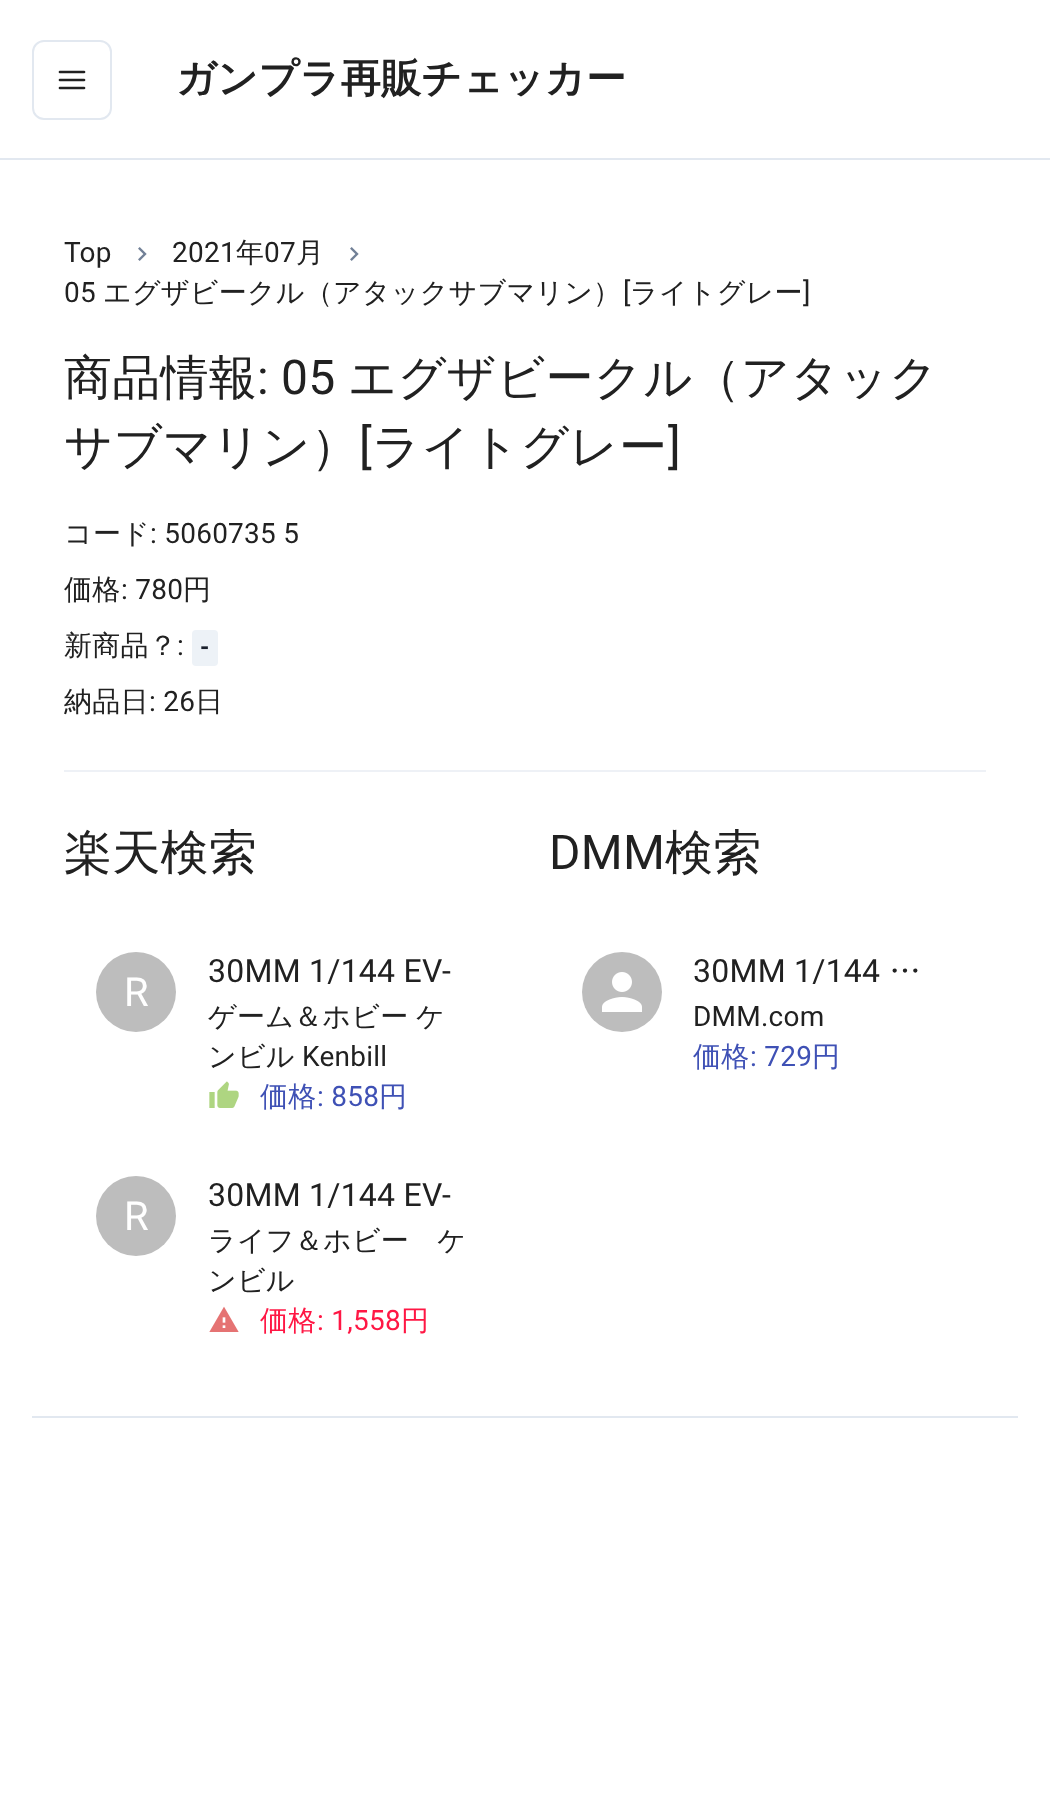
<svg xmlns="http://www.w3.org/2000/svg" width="1050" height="1818">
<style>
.a{font:bold 40px WenQuanYi Zen Hei;letter-spacing:0.25px;fill:#212121}
.b{font:28px Roboto;letter-spacing:0.25px;fill:#212121}
.c{font:500 28px WenQuanYi Zen Hei;letter-spacing:0.25px;fill:#212121}
.d{font:500 48px WenQuanYi Zen Hei;letter-spacing:0.25px;fill:#212121}
.e{font:48px Roboto;letter-spacing:0.25px;fill:#212121}
.f{font:bold 24px Roboto;letter-spacing:0.25px;fill:#1a202c}
.g{font:40px Roboto;letter-spacing:0.25px;fill:#fff}
.h{font:32px Roboto;letter-spacing:0.25px;fill:#212121}
.i{font:500 28px WenQuanYi Zen Hei;letter-spacing:0.25px;fill:#3f51b5}
.j{font:28px Roboto;letter-spacing:0.25px;fill:#3f51b5}
.k{font:500 28px WenQuanYi Zen Hei;letter-spacing:0.25px;fill:#ff1744}
.l{font:28px Roboto;letter-spacing:0.25px;fill:#ff1744}
.m{font:500 32px WenQuanYi Zen Hei;letter-spacing:0.25px;fill:#212121}
</style>
<rect width="100%" height="100%" fill="#fff"/>
<path fill="#e2e8f0" d="M0 158h1050v2H0z"/>
<rect fill="none" stroke="#e2e8f0" stroke-width="2" x="33" y="41" width="78" height="78" rx="11"/>
<path fill="none" stroke="#212121" stroke-width="2.7" stroke-linecap="round" stroke-linejoin="round" d="M60 80h24m-24-8h24m-24 16h24"/>
<image href="1.png" x="138" y="247" width="9" height="14"/>
<image href="1.png" x="350" y="247" width="9" height="14"/>
<rect fill="#edf2f7" x="192" y="630" width="26" height="36" rx="4"/>
<path fill="#eef1f6" d="M64 770h922v2H64z"/>
<circle fill="#bdbdbd" cx="136" cy="992" r="40"/>
<image href="2.png" x="209" y="1081" width="30" height="27"/>
<circle fill="#bdbdbd" cx="136" cy="1216" r="40"/>
<image href="3.png" x="209" y="1306" width="30" height="26"/>
<circle fill="#bdbdbd" cx="622" cy="992" r="40"/>
<image href="4.png" x="602" y="972" width="40" height="40"/>
<path fill="#e2e8f0" d="M32 1416h986v2H32z"/>
<text class="a" x="176" y="92">ガンプラ再販チェッカー</text>
<text class="b" x="64" y="262">Top</text>
<text class="b" x="172" y="262">2021</text>
<text class="c" x="236" y="262">年</text>
<text class="b" x="264" y="262">07</text>
<text class="c" x="296" y="262">月</text>
<text class="b" x="64" y="302">05</text>
<text class="c" x="103" y="302">エグザビークル（アタックサブマリン）</text>
<text class="b" x="623" y="302">[</text>
<text class="c" x="630" y="302">ライトグレー</text>
<text class="b" x="803" y="302">]</text>
<text class="d" x="64" y="394">商品情報</text>
<text class="e" x="257" y="394">: 05</text>
<text class="d" x="348" y="394">エグザビークル（アタック</text>
<text class="d" x="64" y="463">サブマリン）</text>
<text class="e" x="359" y="463">[</text>
<text class="d" x="372" y="463">ライトグレー</text>
<text class="e" x="668" y="463">]</text>
<text class="c" x="64" y="543">コード</text>
<text class="b" x="150" y="543">: 5060735 5</text>
<text class="c" x="64" y="599">価格</text>
<text class="b" x="121" y="599">: 780</text>
<text class="c" x="183" y="599">円</text>
<text class="c" x="64" y="655">新商品？</text>
<text class="b" x="177" y="655">:</text>
<text class="f" x="200" y="655">-</text>
<text class="c" x="64" y="711">納品日</text>
<text class="b" x="149" y="711">: 26</text>
<text class="c" x="195" y="711">日</text>
<text class="d" x="64" y="869">楽天検索</text>
<text class="g" x="124" y="1006">R</text>
<text class="h" x="208" y="982">30MM 1/144 EV-</text>
<text class="c" x="208" y="1026" word-spacing="-1">ゲーム＆ホビー ケ</text>
<text class="c" x="208" y="1066">ンビル</text>
<text class="b" x="302" y="1066">Kenbill</text>
<text class="i" x="260" y="1106">価格</text>
<text class="j" x="317" y="1106">: 858</text>
<text class="i" x="379" y="1106">円</text>
<text class="g" x="124" y="1230">R</text>
<text class="h" x="208" y="1206">30MM 1/144 EV-</text>
<text class="c" x="208" y="1250">ライフ＆ホビー　ケ</text>
<text class="c" x="208" y="1290">ンビル</text>
<text class="k" x="260" y="1330">価格</text>
<text class="l" x="317" y="1330">: 1,558</text>
<text class="k" x="401" y="1330">円</text>
<text class="e" x="549" y="869">DMM</text>
<text class="d" x="665" y="869">検索</text>
<text class="h" x="693" y="982">30MM 1/144</text>
<text class="m" x="889" y="982">…</text>
<text class="b" x="693" y="1026">DMM.com</text>
<text class="i" x="693" y="1066">価格</text>
<text class="j" x="750" y="1066">: 729</text>
<text class="i" x="812" y="1066">円</text>
</svg>
